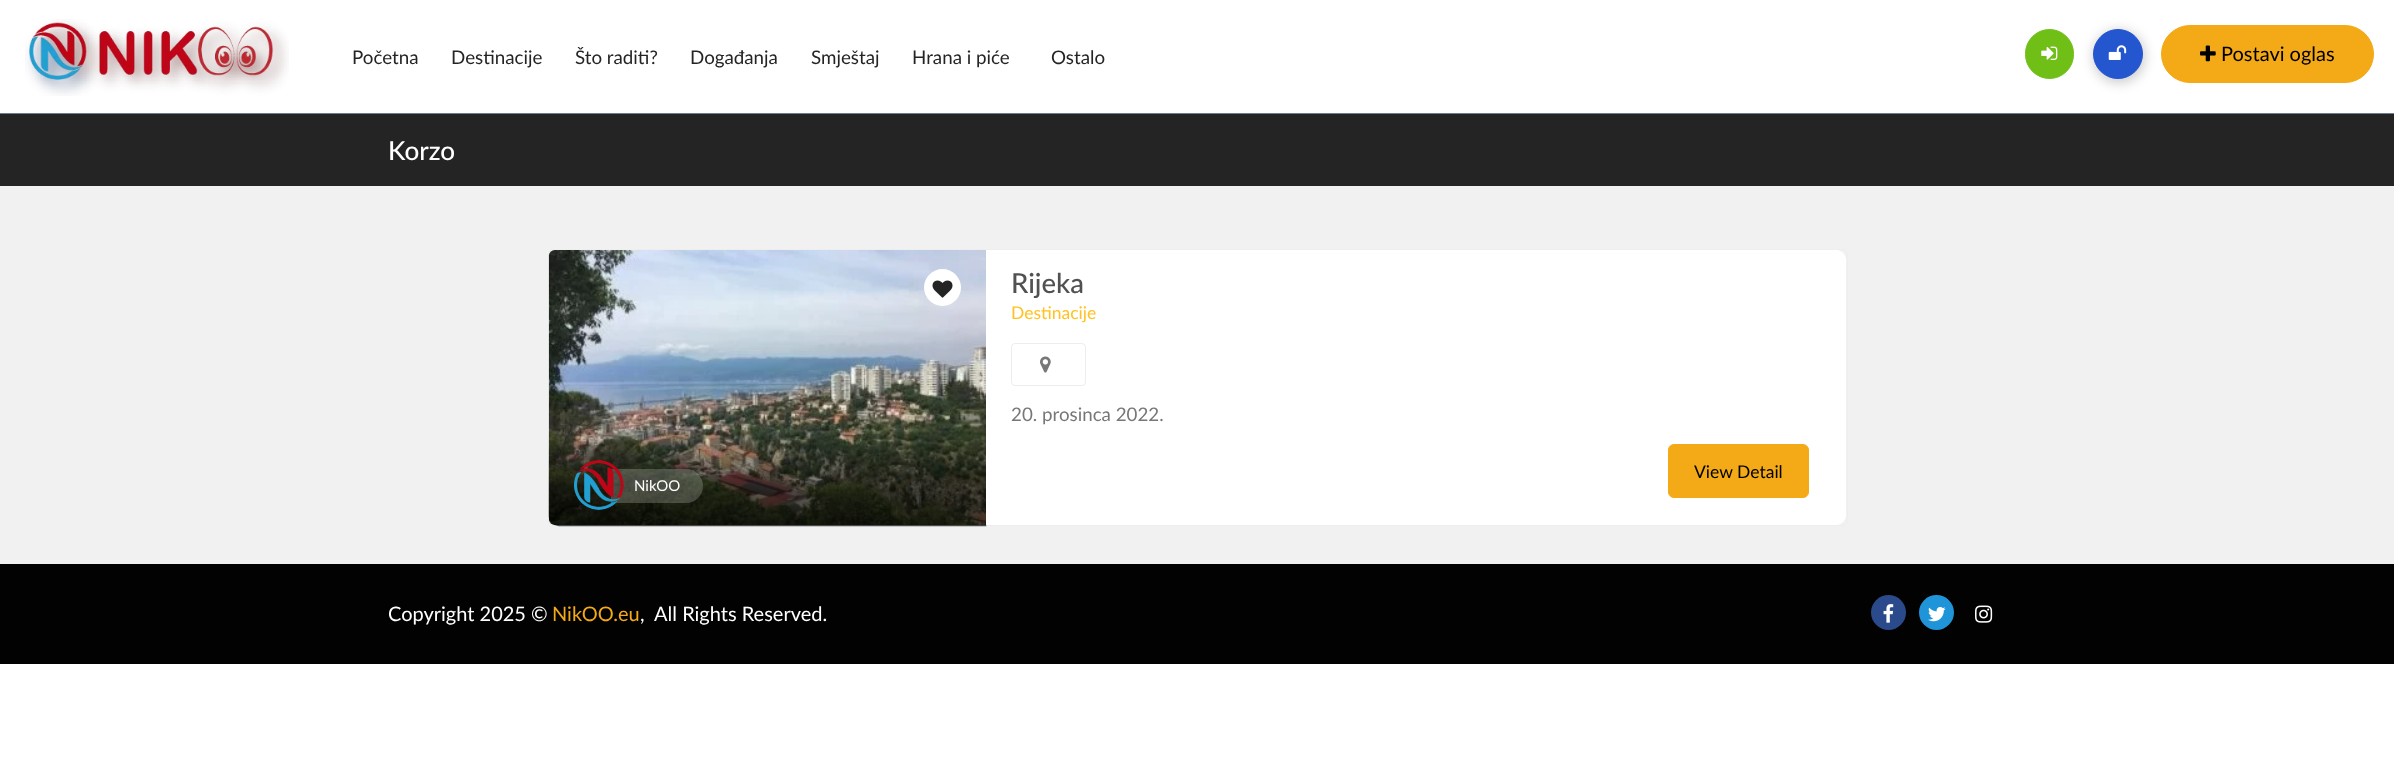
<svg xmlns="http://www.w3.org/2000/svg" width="2394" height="782">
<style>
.a{font:18.75px Lato;fill:#242424}
.b{font:20px Lato;fill:#000}
.c{font:500 26px Lato;fill:#fff}
.d{font:500 27.5px Lato;fill:#515151}
.e{font:17.5px Lato;fill:#ffc222}
.f{font:18.75px Lato;fill:#777}
.g{font:17.5px Lato;fill:#000}
.h{font:15px Lato;fill:#fff}
.i{font:20px Lato;fill:#fff}
.j{font:20px Lato;fill:#f4aa16}
</style>
<rect width="100%" height="100%" fill="#fff"/>
<path fill="#6d7c90" d="M0 113h2394v1H0z"/>
<image href="1.png" x="25" y="19" width="264" height="77"/>
<rect fill="#6fbf17" stroke="#6fbf17" x="2025.5" y="29.5" width="48" height="49" rx="24"/>
<image href="2.png" x="2041" y="46" width="17" height="14"/>
<rect fill="#00000033" filter="blur(6px)" x="2093" y="30" width="52" height="53" rx="26"/>
<circle fill="#2457cf" stroke="#2457cf" cx="2118" cy="54" r="24.5"/>
<image href="3.png" x="2108" y="45" width="19" height="15"/>
<rect fill="#f4aa16" stroke="#f4aa16" x="2161.5" y="25.5" width="212" height="57" rx="28.5"/>
<image href="4.png" x="2200" y="45" width="16" height="17"/>
<path fill="#242424" d="M0 114h2394v72H0z"/>
<path fill="#f1f1f1" d="M0 186h2394v378H0z"/>
<rect fill="none" stroke="#eee" x="548.5" y="249.5" width="1299" height="276" rx="5.5"/>
<image href="6.png" x="548" y="250" width="438" height="275"/>
<image href="8.png" x="548" y="432" width="439" height="95"/>
<path fill="#fff" d="M986 250h850c5.5 0 10 4.5 10 10v255c0 5.5-4.5 10-10 10h-850z"/>
<rect fill="none" stroke="#ededed" x="1011.5" y="343.5" width="74" height="42" rx="3.5"/>
<image href="5.png" x="1040" y="356" width="11" height="17"/>
<rect fill="#f4aa16" stroke="#f4aa16" x="1668.5" y="444.5" width="140" height="53" rx="5.5"/>
<circle fill="#fff" cx="942.5" cy="287.5" r="18.5"/>
<image href="7.png" x="932" y="280" width="21" height="18"/>
<path fill="#ffffff33" d="M611 469h75c9.5 0 17 7.5 17 17c0 9.5-7.5 17-17 17h-75z"/>
<image href="9.png" x="573" y="460" width="51" height="50"/>
<path fill="#020202" d="M0 564h2394v100H0z"/>
<circle fill="#2b4a8b" cx="1888.5" cy="612.5" r="17.5"/>
<image href="10.png" x="1883" y="604" width="11" height="19"/>
<circle fill="#1f94d9" cx="1936.5" cy="612.5" r="17.5"/>
<image href="11.png" x="1928" y="607" width="18" height="15"/>
<image href="12.png" x="1975" y="605" width="18" height="18"/>
<text class="a" x="352" y="64">Početna</text>
<text class="a" x="451" y="64">Destinacije</text>
<text class="a" x="575" y="64">Što raditi?</text>
<text class="a" x="690" y="64">Događanja</text>
<text class="a" x="811" y="64">Smještaj</text>
<text class="a" x="912" y="64">Hrana i piće</text>
<text class="a" x="1051" y="64">Ostalo</text>
<text class="b" x="2221" y="61">Postavi oglas</text>
<text class="c" x="388" y="160">Korzo</text>
<text class="d" x="1011" y="293">Rijeka</text>
<text class="e" x="1011" y="319">Destinacije</text>
<text class="f" x="1011" y="421">20. prosinca 2022.</text>
<text class="g" x="1694" y="478">View Detail</text>
<text class="h" x="634" y="491">NikOO</text>
<text class="i" x="388" y="621">Copyright 2025 ©</text>
<text class="j" x="552" y="621">NikOO.eu</text>
<text class="i" xml:space="preserve" x="640" y="621">,  All Rights Reserved.</text>
</svg>
